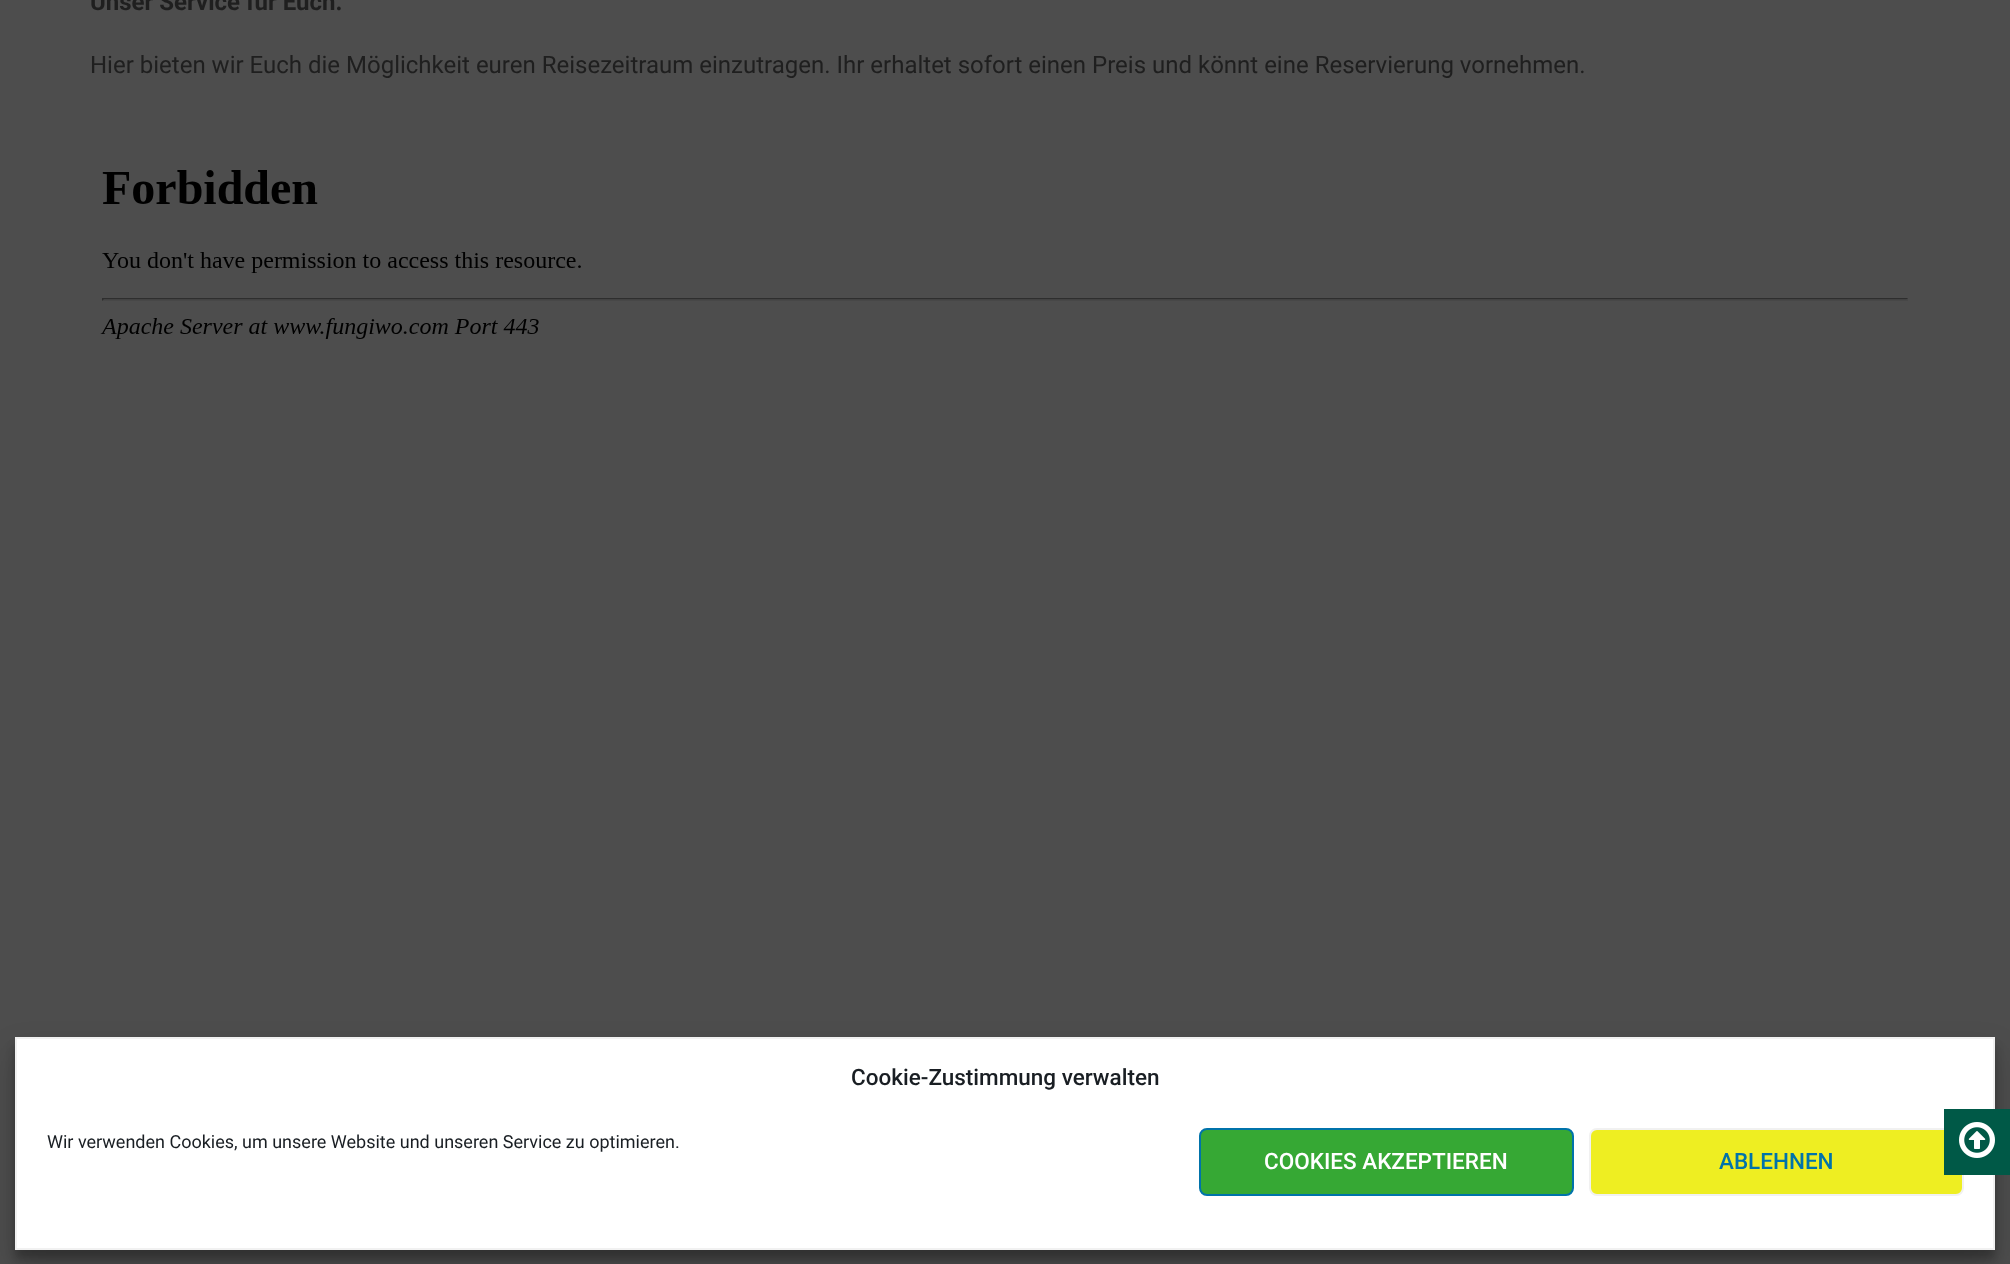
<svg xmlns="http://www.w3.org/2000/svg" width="2010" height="1264">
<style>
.a{font:bold 24px Roboto;fill:#1f1f1f}
.b{font:24px Roboto;fill:#1f1f1f}
.c{font:500 22.5px Roboto;fill:#191e23}
.d{font:18px Roboto;fill:#191e23}
.e{font:500 22.5px Roboto;fill:#fff}
.f{font:500 22.5px Roboto;fill:#0073aa}
</style>
<rect width="100%" height="100%" fill="#4d4d4d"/>
<image href="1.png" x="100" y="170" width="1808" height="169"/>
<path fill="#0000003b" filter="blur(4.5px)" d="M15 1046h1980v213H15z"/>
<path fill="#00000030" filter="blur(15px)" d="M15 1052h1980v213H15z"/>
<path fill="#fff" stroke="#f1f1f1" stroke-width="2" d="M16 1038h1978v211H16z"/>
<rect fill="#36a834" stroke="#0073aa" stroke-width="2" x="1200" y="1129" width="373" height="66" rx="7"/>
<rect fill="#ee2" stroke="#f1f1f1" stroke-width="2" x="1590" y="1129" width="373" height="66" rx="7"/>
<path fill="#005947" d="M1944 1109h66v66H1944z"/>
<image href="2.png" x="1959" y="1122" width="36" height="36"/>
<text class="a" x="90" y="10">Unser Service für Euch.</text>
<text class="b" x="90" y="73">Hier bieten wir Euch die Möglichkeit euren Reisezeitraum einzutragen. Ihr erhaltet sofort einen Preis und könnt eine Reservierung vornehmen.</text>
<text class="c" x="851" y="1085">Cookie-Zustimmung verwalten</text>
<text class="d" x="47" y="1148">Wir verwenden Cookies, um unsere Website und unseren Service zu optimieren.</text>
<text class="e" x="1264" y="1169">COOKIES AKZEPTIEREN</text>
<text class="f" x="1719" y="1169">ABLEHNEN</text>
</svg>
